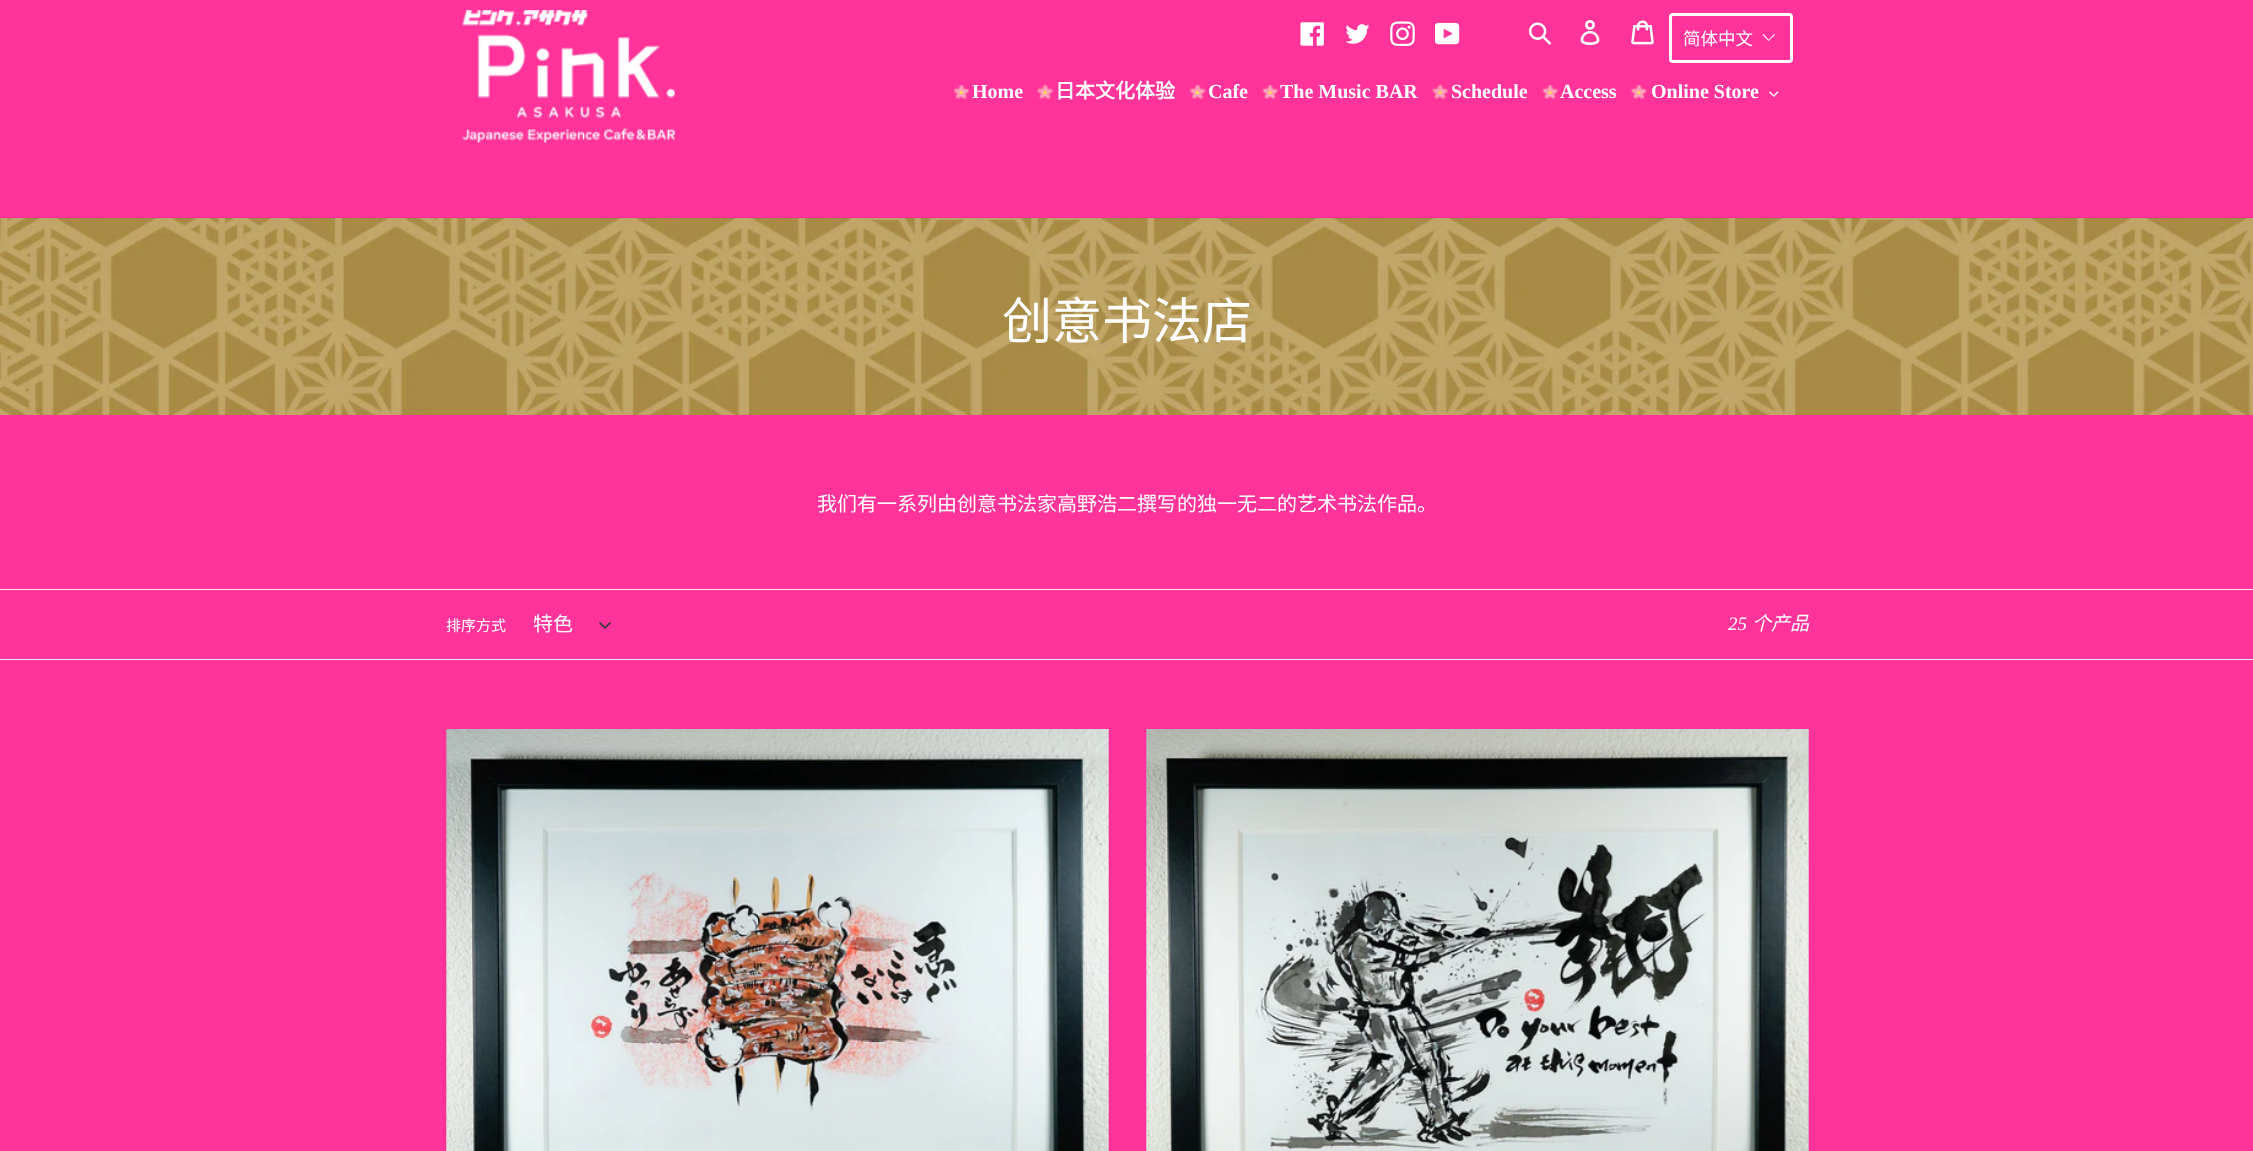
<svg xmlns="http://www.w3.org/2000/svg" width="2253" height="1151">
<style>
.a{font:17.5px Noto Sans CJK SC;fill:#fff}
.b{font:bold 20px Liberation Serif;fill:#fff}
.c{font:bold 20px Noto Sans CJK SC;fill:#fff}
.d{font:50px Noto Sans CJK SC;fill:#fff}
.e{font:20px Noto Sans CJK SC;fill:#fff}
.f{font:15px Noto Sans CJK SC;fill:#fff}
.g{font:italic 19px Liberation Serif;fill:#fff}
.h{font:italic 19px Noto Sans CJK SC;fill:#fff}
</style>
<rect width="100%" height="100%" fill="#f39"/>
<image href="1.png" x="462" y="10" width="213" height="133"/>
<image href="2.png" x="1300" y="22" width="24" height="24"/>
<image href="3.png" x="1345" y="24" width="25" height="20"/>
<image href="4.png" x="1390" y="21" width="25" height="25"/>
<image href="5.png" x="1435" y="22" width="25" height="23"/>
<image href="6.png" x="1528" y="22" width="23" height="23"/>
<image href="7.png" x="1580" y="20" width="20" height="25"/>
<image href="8.png" x="1631" y="20" width="23" height="25"/>
<rect fill="none" stroke="#fff" stroke-width="3" x="1670.5" y="14.5" width="121" height="47" rx="2.5"/>
<path fill="#ffebf5" d="M1774 34l1 1l-6.5 6l-.5-.5z"/>
<path fill="#ffebf5" d="M1763.5 34l6 6.5l-1 .5l-6-6z"/>
<image href="9.png" x="954" y="85" width="15" height="14"/>
<image href="10.png" x="1036" y="85" width="17" height="14"/>
<image href="11.png" x="1189" y="85" width="17" height="14"/>
<image href="12.png" x="1261" y="85" width="17" height="14"/>
<image href="12.png" x="1431" y="85" width="17" height="14"/>
<image href="12.png" x="1541" y="85" width="17" height="14"/>
<image href="13.png" x="1630" y="85" width="17" height="14"/>
<image href="14.png" x="1769" y="91" width="10" height="6"/>
<image href="15.png" x="0" y="218" width="2253" height="197"/>
<path fill="#ebebeb" d="M0 589h2253v1H0z"/>
<path fill="#ebebeb" d="M0 659h2253v1H0z"/>
<image href="16.png" x="599" y="622" width="12" height="7"/>
<image href="17.png" x="446" y="729" width="663" height="422"/>
<image href="18.png" x="1146" y="729" width="663" height="422"/>
<text class="a" x="1683" y="45">简体中文</text>
<text class="b" x="972" y="98">Home</text>
<text class="c" x="1055" y="98">日本文化体验</text>
<text class="b" x="1208" y="98">Cafe</text>
<text class="b" x="1280" y="98">The Music BAR</text>
<text class="b" x="1451" y="98">Schedule</text>
<text class="b" x="1560" y="98">Access</text>
<text class="b" x="1651" y="98">Online Store</text>
<text class="d" x="1002" y="339">创意书法店</text>
<text class="e" x="817" y="511">我们有一系列由创意书法家高野浩二撰写的独一无二的艺术书法作品。</text>
<text class="f" x="446" y="631">排序方式</text>
<text class="e" x="533" y="631">特色</text>
<text class="g" x="1728" y="630">25</text>
<text class="h" x="1752" y="630">个产品</text>
</svg>
